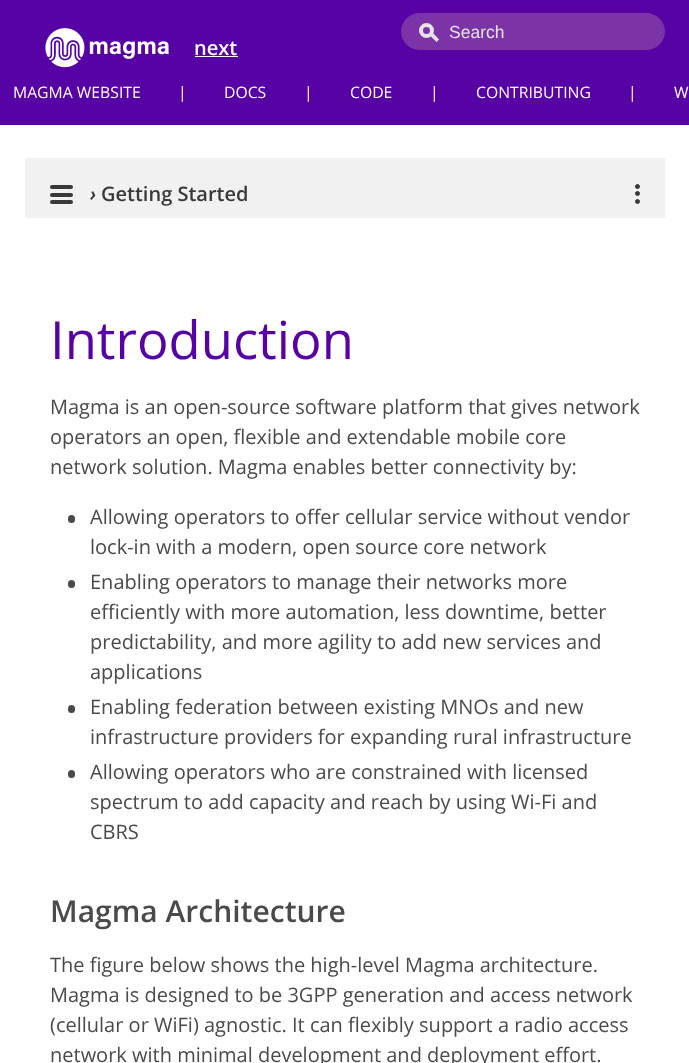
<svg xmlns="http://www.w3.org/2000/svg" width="689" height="1063">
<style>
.a{font:17.5px Liberation Sans;fill:#e5e5e5}
.b{font:15.75px Open Sans;fill:#fff}
.c{font:600 20px Open Sans;fill:#fff}
.d{font:italic 600 20px Open Sans;fill:#393939}
.e{font:600 20px Open Sans;fill:#393939}
.f{font:52.5px Open Sans;fill:#5602a4}
.g{font:20px Open Sans;fill:#4a4a4a}
.h{font:600 30px Open Sans;fill:#4a4a4a}
</style>
<rect width="100%" height="100%" fill="#fff"/>
<path fill="#5602a4" d="M0 0h689v125H0z"/>
<rect fill="#7d33a8" x="401" y="13" width="264" height="37" rx="18.5"/>
<circle fill="none" stroke="#e5e5e5" stroke-width="4" cx="426.5" cy="30.5" r="5.5"/>
<path fill="#e5e5e5" d="M430 35.5l3-2.5l6 6.5l-2.5 2.5z"/>
<image href="1.png" x="45" y="28" width="124" height="40"/>
<path fill="#fff" d="M195 56h43v1H195z"/>
<path fill="#f1f1f1" d="M25 158h640v60H25z"/>
<rect fill="#393939" x="50" y="185" width="23" height="4" rx="2"/>
<rect fill="#393939" x="50" y="193" width="23" height="4" rx="2"/>
<rect fill="#393939" x="50" y="200" width="23" height="4" rx="2"/>
<circle fill="#393939" stroke="#393939" cx="637.5" cy="193.5" r="2"/>
<circle fill="#393939" stroke="#393939" cx="637.5" cy="186.5" r="2"/>
<circle fill="#393939" stroke="#393939" cx="637.5" cy="201.5" r="2"/>
<rect fill="#4a4a4a" x="68" y="515" width="7" height="8" rx="3.5"/>
<rect fill="#4a4a4a" x="68" y="580" width="7" height="8" rx="3.5"/>
<rect fill="#4a4a4a" x="68" y="705" width="7" height="8" rx="3.5"/>
<rect fill="#4a4a4a" x="68" y="770" width="7" height="8" rx="3.5"/>
<text class="a" x="449" y="38">Search</text>
<text class="b" x="13" y="98">MAGMA WEBSITE</text>
<text class="b" x="178" y="98">|</text>
<text class="b" x="224" y="98">DOCS</text>
<text class="b" x="304" y="98">|</text>
<text class="b" x="350" y="98">CODE</text>
<text class="b" x="430" y="98">|</text>
<text class="b" x="476" y="98">CONTRIBUTING</text>
<text class="b" x="628" y="98">|</text>
<text class="b" x="674" y="98">W</text>
<text class="c" x="194" y="55">next</text>
<text class="d" x="90" y="201">›</text>
<text class="e" x="101" y="201">Getting Started</text>
<text class="f" x="50" y="359">Introduction</text>
<text class="g" x="50" y="414">Magma is an open-source software platform that gives network</text>
<text class="g" x="50" y="444">operators an open, flexible and extendable mobile core</text>
<text class="g" x="50" y="474">network solution. Magma enables better connectivity by:</text>
<text class="g" x="90" y="524">Allowing operators to offer cellular service without vendor</text>
<text class="g" x="90" y="554">lock-in with a modern, open source core network</text>
<text class="g" x="90" y="589">Enabling operators to manage their networks more</text>
<text class="g" x="90" y="619">efficiently with more automation, less downtime, better</text>
<text class="g" x="90" y="649">predictability, and more agility to add new services and</text>
<text class="g" x="90" y="679">applications</text>
<text class="g" x="90" y="714">Enabling federation between existing MNOs and new</text>
<text class="g" x="90" y="744">infrastructure providers for expanding rural infrastructure</text>
<text class="g" x="90" y="779">Allowing operators who are constrained with licensed</text>
<text class="g" x="90" y="809">spectrum to add capacity and reach by using Wi-Fi and</text>
<text class="g" x="90" y="839">CBRS</text>
<text class="h" x="50" y="922">Magma Architecture</text>
<text class="g" x="50" y="972">The figure below shows the high-level Magma architecture.</text>
<text class="g" x="50" y="1002">Magma is designed to be 3GPP generation and access network</text>
<text class="g" x="50" y="1032">(cellular or WiFi) agnostic. It can flexibly support a radio access</text>
<text class="g" x="50" y="1062">network with minimal development and deployment effort.</text>
</svg>
